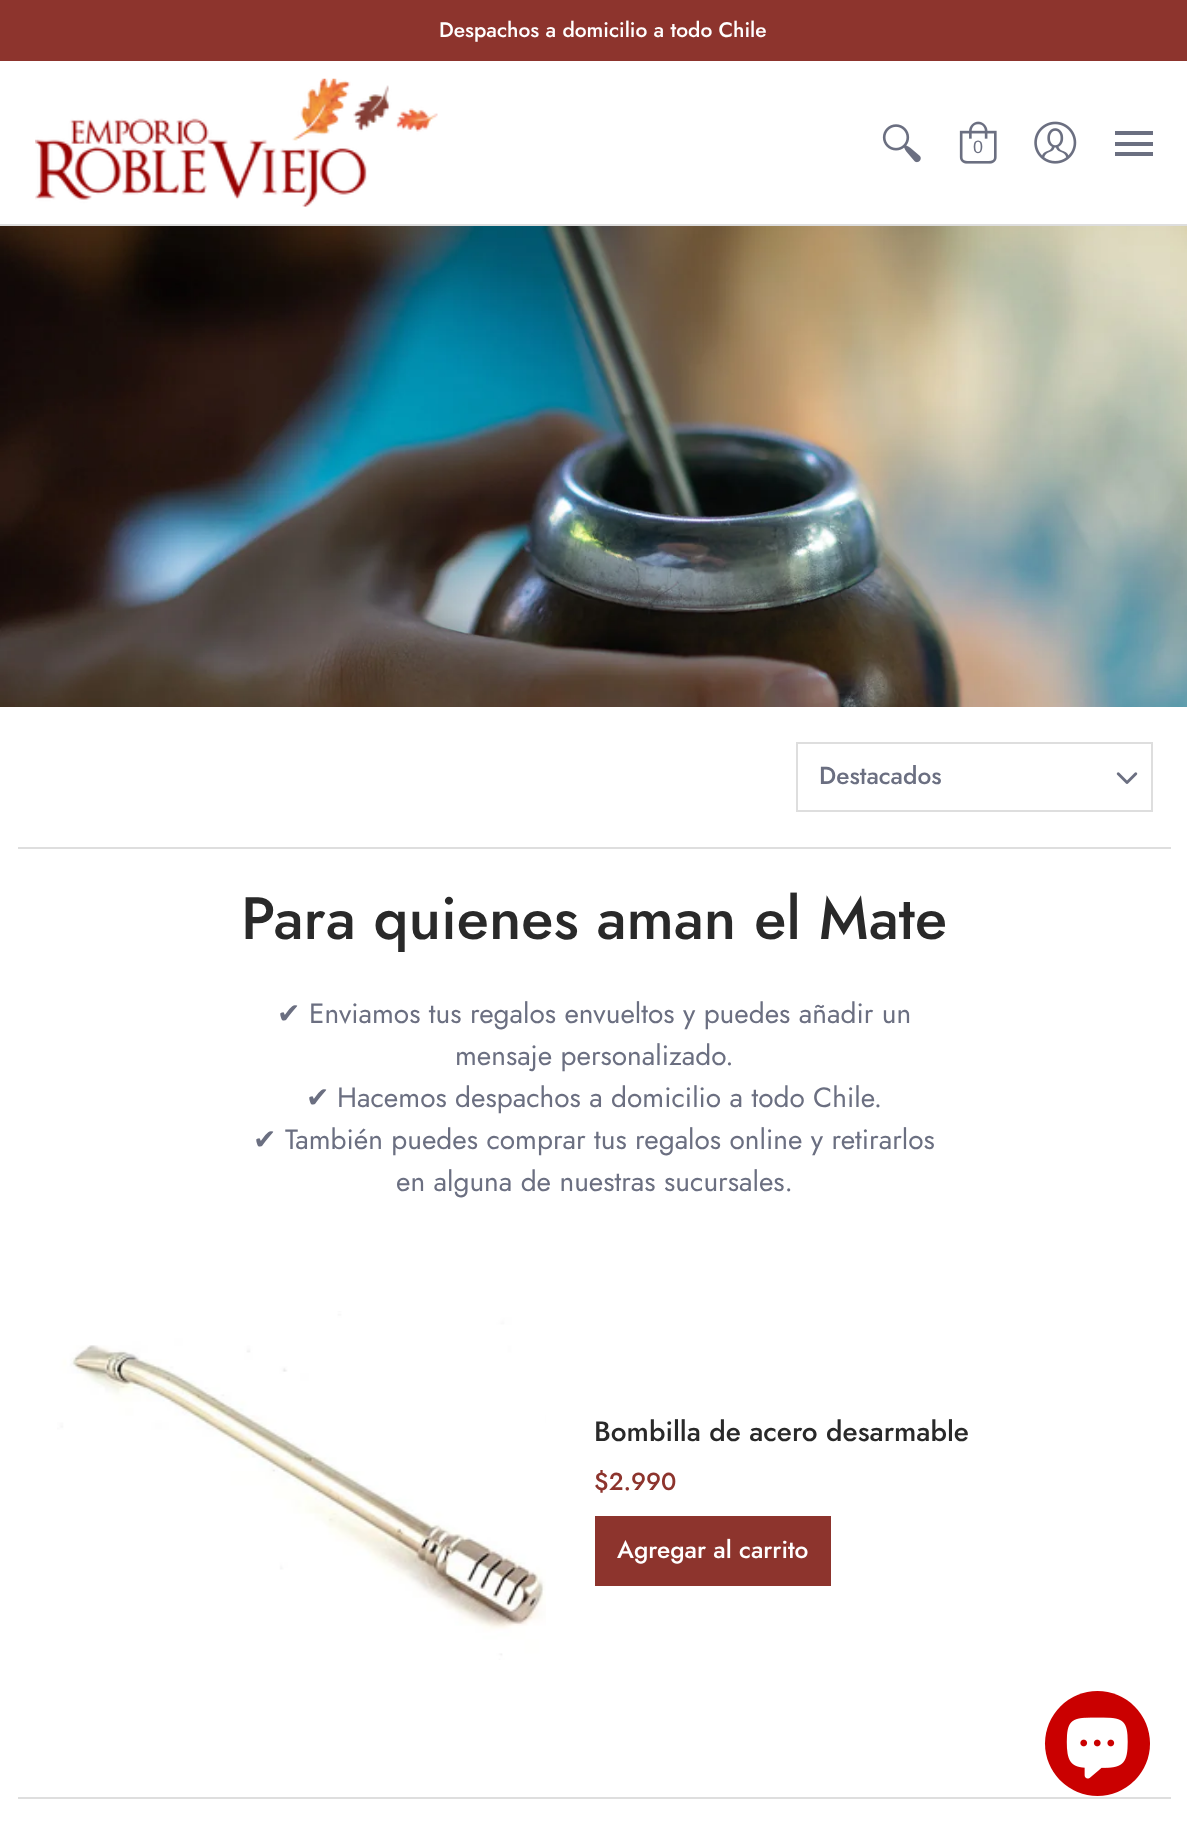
<svg xmlns="http://www.w3.org/2000/svg" width="1187" height="1832">
<style>
.a{font:500 21px Jost;fill:#fff}
.b{font:18px Liberation Sans;fill:#6b6f81}
.c{font:500 24.5px Jost;fill:#6b6f81}
.d{font:500 59.5px Jost;fill:#292929}
.e{font:28px DejaVu Sans;fill:#6b6f81}
.f{font:28px Jost;fill:#6b6f81}
.g{font:500 28px Jost;fill:#292929}
.h{font:500 24.5px Jost;fill:#8d342d}
.i{font:500 24.5px Jost;fill:#fff}
</style>
<rect width="100%" height="100%" fill="#fff"/>
<path fill="#8d342d" d="M0 0h1187v61H0z"/>
<path fill="#dedede" d="M0 224h1187v2H0z"/>
<image href="1.png" x="35" y="78" width="403" height="129"/>
<image href="2.png" x="882" y="124" width="39" height="39"/>
<image href="3.png" x="959" y="121" width="38" height="43"/>
<image href="4.png" x="1034" y="121" width="43" height="43"/>
<path fill="#6b6f81" d="M1115 131h38v4H1115z"/>
<path fill="#6b6f81" d="M1115 152h38v4H1115z"/>
<path fill="#6b6f81" d="M1115 142h38v4H1115z"/>
<image href="5.png" x="0" y="226" width="1187" height="481"/>
<path fill="#dedede" d="M18 847h1153v2H18z"/>
<image href="6.png" x="1116" y="772" width="22" height="12"/>
<path fill="none" stroke="#dedede" stroke-width="2" d="M797 743h355v68H797z"/>
<path fill="#dedede" d="M18 1797h1153v2H18z"/>
<image href="7.png" x="57" y="1311" width="489" height="349"/>
<path fill="#8d342d" d="M595 1516h236v70H595z"/>
<circle fill="#ca0000" cx="1097.5" cy="1743.5" r="52.5"/>
<image href="8.png" x="1066" y="1717" width="62" height="62"/>
<text class="a" x="439" y="37">Despachos a domicilio a todo Chile</text>
<text class="b" x="973" y="153">0</text>
<text class="c" x="819" y="784">Destacados</text>
<text class="d" x="241" y="939">Para quienes aman el Mate</text>
<text class="e" x="277" y="1023">✔︎</text>
<text class="f" x="309" y="1023">Enviamos tus regalos envueltos y puedes añadir un</text>
<text class="f" x="455" y="1065">mensaje personalizado.</text>
<text class="e" x="306" y="1107">✔︎</text>
<text class="f" x="337" y="1107">Hacemos despachos a domicilio a todo Chile.</text>
<text class="e" x="253" y="1149">✔︎</text>
<text class="f" x="285" y="1149">También puedes comprar tus regalos online y retirarlos</text>
<text class="f" x="396" y="1191">en alguna de nuestras sucursales.</text>
<text class="g" x="594" y="1441">Bombilla de acero desarmable</text>
<text class="h" x="594" y="1490">$2.990</text>
<text class="i" x="617" y="1558">Agregar al carrito</text>
</svg>
